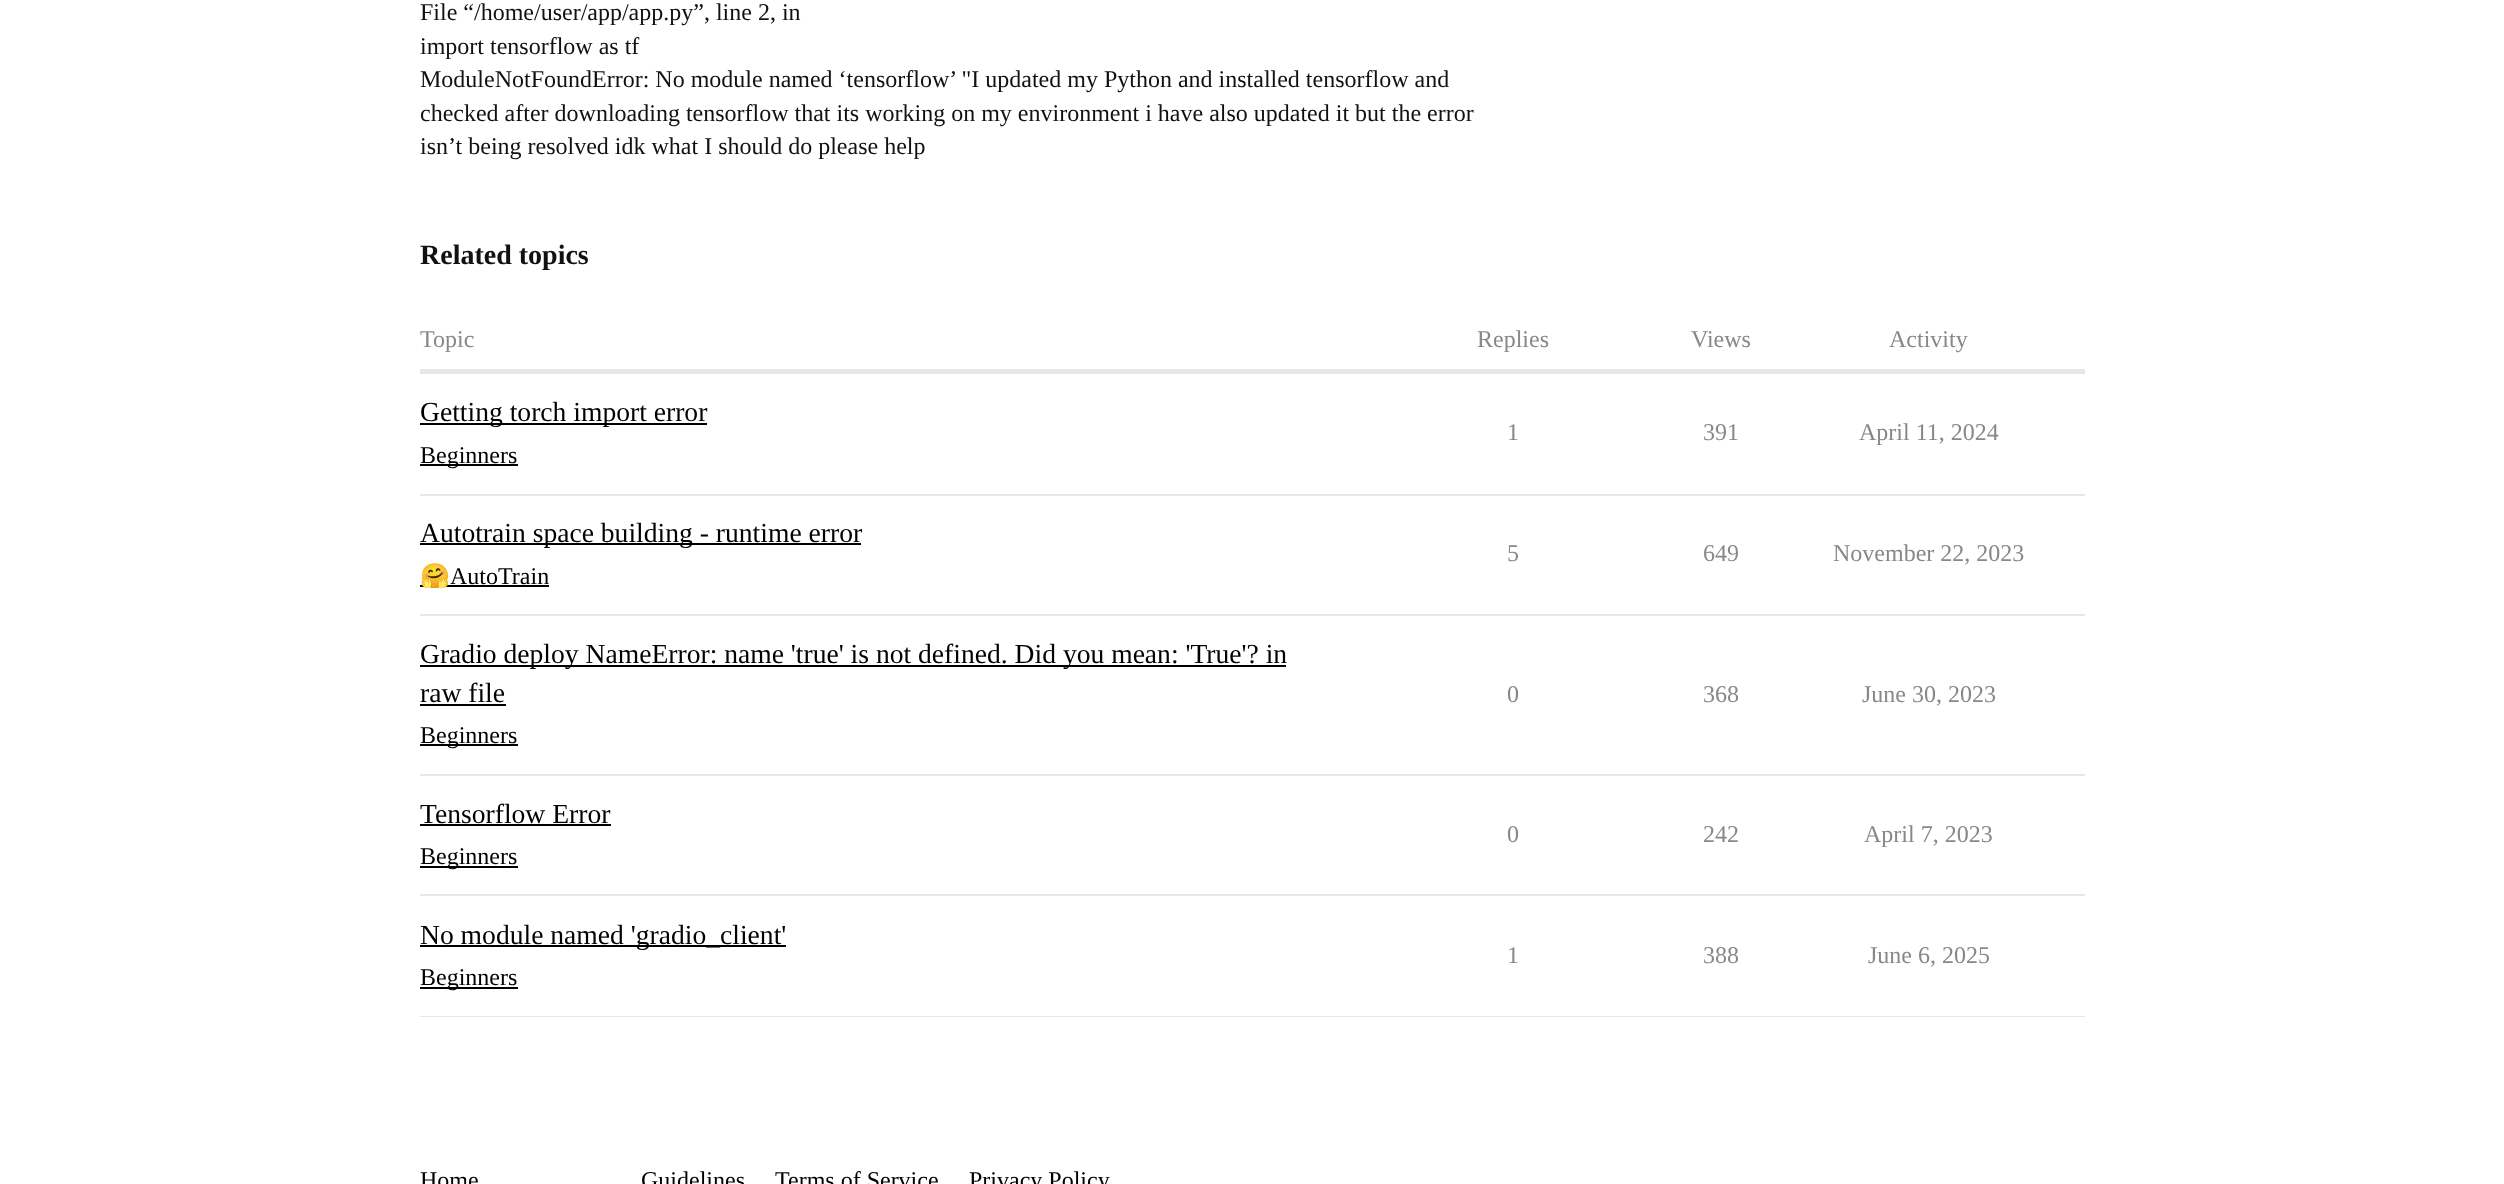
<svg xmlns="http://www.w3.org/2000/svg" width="2504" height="1184">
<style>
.a{font:24px Liberation Serif;fill:#111}
.b{font:bold 28px Liberation Serif;fill:#111}
.c{font:24px Liberation Serif;fill:#888}
.d{font:27.6px Liberation Serif;fill:#000}
.e{font:24px Liberation Serif;fill:#000}
.f{font:24px Noto Color Emoji;fill:#000}
</style>
<rect width="100%" height="100%" fill="#fff"/>
<path fill="#e7e7e7" d="M420 369h1665v5H420z"/>
<path fill="#e7e7e7" d="M420 494h1665v2H420z"/>
<path fill="#000" d="M420 423h287v2H420z"/>
<path fill="#000" d="M420 464h98v2H420z"/>
<path fill="#e7e7e7" d="M420 614h1665v2H420z"/>
<path fill="#000" d="M420 543h441v2H420z"/>
<path fill="#000" d="M420 585h129v2H420z"/>
<path fill="#e7e7e7" d="M420 774h1665v2H420z"/>
<path fill="#000" d="M420 665h866v2H420z"/>
<path fill="#000" d="M420 704h86v2H420z"/>
<path fill="#000" d="M420 744h98v2H420z"/>
<path fill="#e7e7e7" d="M420 894h1665v2H420z"/>
<path fill="#000" d="M420 824h191v2H420z"/>
<path fill="#000" d="M420 866h98v2H420z"/>
<path fill="#e7e7e7" d="M420 1016h1665v1H420z"/>
<path fill="#000" d="M420 945h366v2H420z"/>
<path fill="#000" d="M420 987h98v2H420z"/>
<text class="a" x="420" y="20">File “/home/user/app/app.py”, line 2, in</text>
<text class="a" x="420" y="54">import tensorflow as tf</text>
<text class="a" x="420" y="87">ModuleNotFoundError: No module named ‘tensorflow’ "I updated my Python and installed tensorflow and</text>
<text class="a" x="420" y="121">checked after downloading tensorflow that its working on my environment i have also updated it but the error</text>
<text class="a" x="420" y="154">isn’t being resolved idk what I should do please help</text>
<text class="b" x="420" y="264">Related topics</text>
<text class="c" x="420" y="347">Topic</text>
<text class="c" x="1477" y="347">Replies</text>
<text class="c" x="1691" y="347">Views</text>
<text class="c" x="1889" y="347">Activity</text>
<text class="d" x="420" y="421">Getting torch import error</text>
<text class="e" x="420" y="463">Beginners</text>
<text class="c" x="1507" y="440">1</text>
<text class="c" x="1703" y="440">391</text>
<text class="c" x="1859" y="440">April 11, 2024</text>
<text class="d" x="420" y="542">Autotrain space building - runtime error</text>
<text class="f" x="420" y="584">🤗</text>
<text class="e" x="450" y="584">AutoTrain</text>
<text class="c" x="1507" y="561">5</text>
<text class="c" x="1703" y="561">649</text>
<text class="c" x="1833" y="561">November 22, 2023</text>
<text class="d" x="420" y="663">Gradio deploy NameError: name 'true' is not defined. Did you mean: 'True'? in</text>
<text class="d" x="420" y="702">raw file</text>
<text class="e" x="420" y="743">Beginners</text>
<text class="c" x="1507" y="702">0</text>
<text class="c" x="1703" y="702">368</text>
<text class="c" x="1862" y="702">June 30, 2023</text>
<text class="d" x="420" y="823">Tensorflow Error</text>
<text class="e" x="420" y="864">Beginners</text>
<text class="c" x="1507" y="842">0</text>
<text class="c" x="1703" y="842">242</text>
<text class="c" x="1864" y="842">April 7, 2023</text>
<text class="d" x="420" y="944">No module named 'gradio_client'</text>
<text class="e" x="420" y="985">Beginners</text>
<text class="c" x="1507" y="963">1</text>
<text class="c" x="1703" y="963">388</text>
<text class="c" x="1868" y="963">June 6, 2025</text>
<text class="e" x="420" y="1188">Home</text>
<text class="e" x="641" y="1188">Guidelines</text>
<text class="e" x="775" y="1188">Terms of Service</text>
<text class="e" x="969" y="1188">Privacy Policy</text>
</svg>
